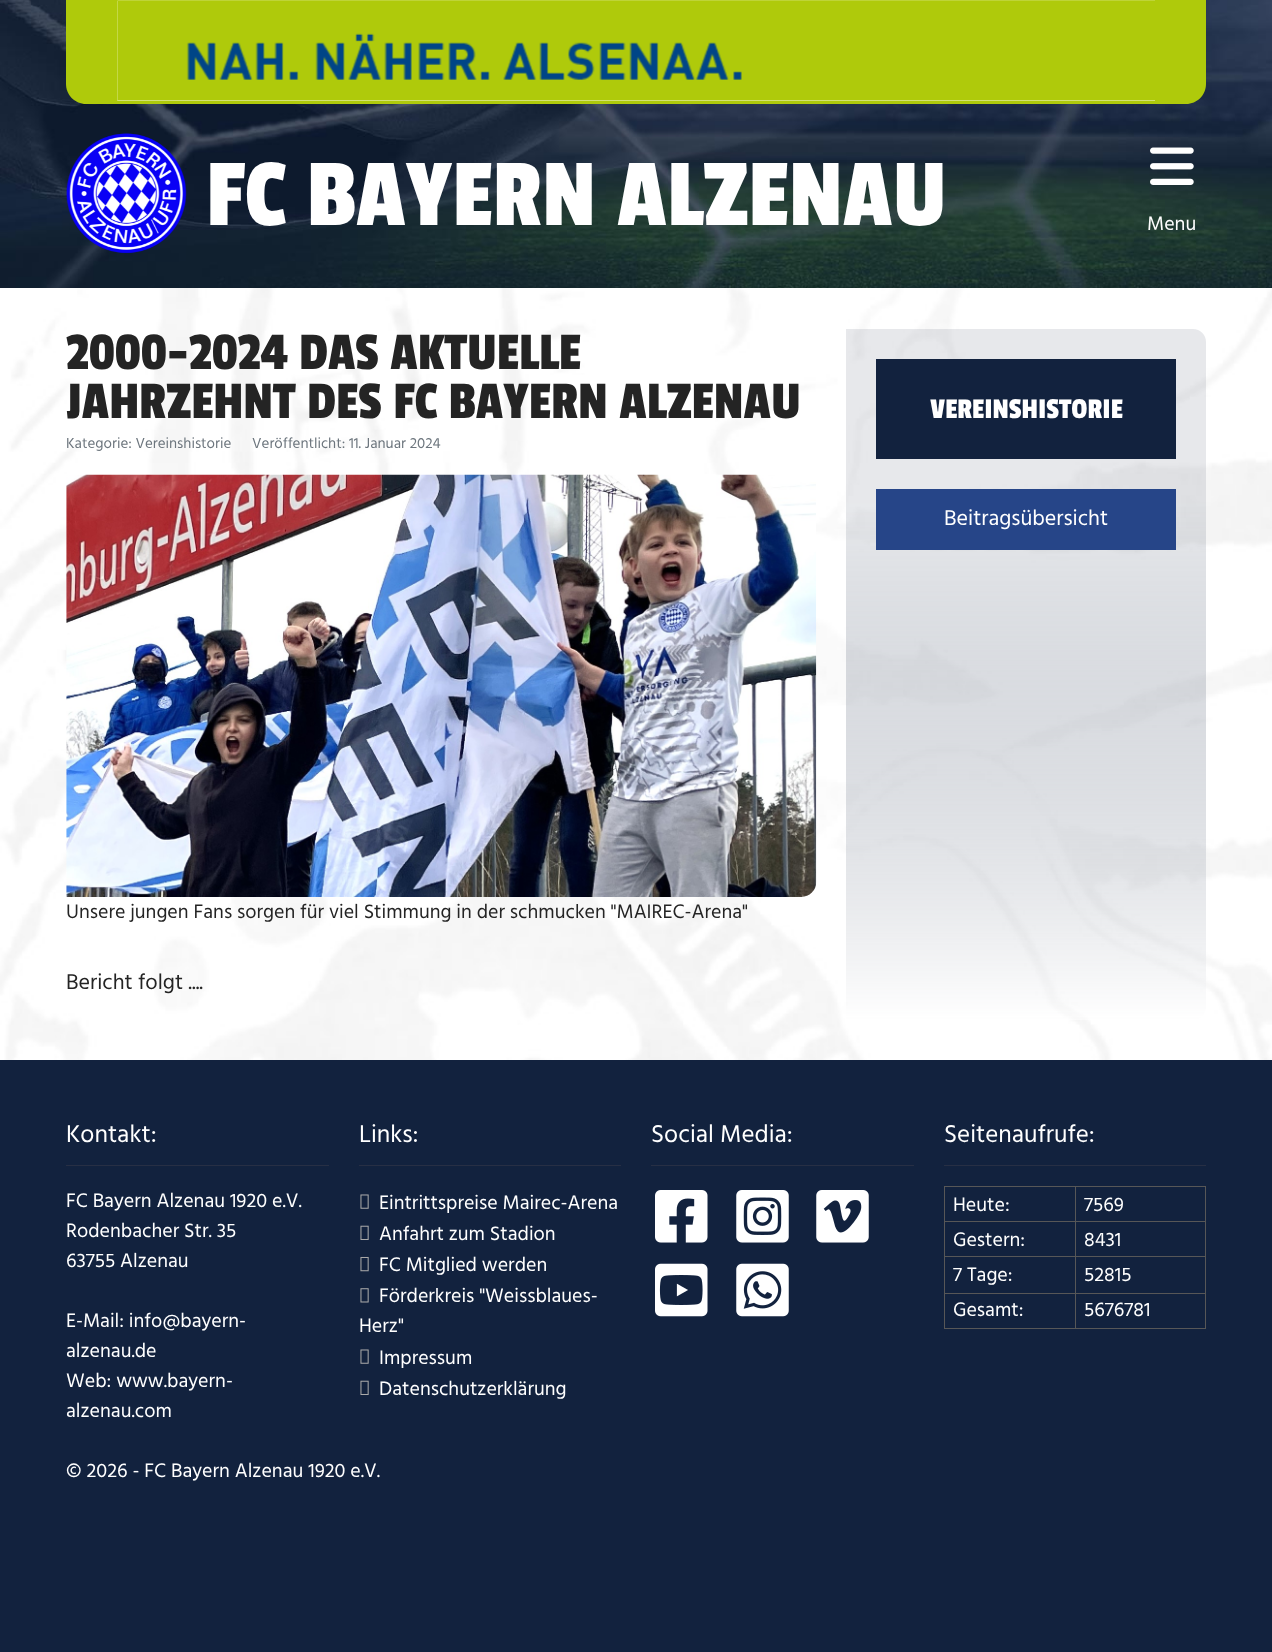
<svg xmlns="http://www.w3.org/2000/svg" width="1272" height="1652">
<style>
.a{font:100px Passion One;fill:#fff}
.b{font:20px Hind Madurai;fill:#fff}
.c{font:55px Passion One;fill:#242424}
.d{font:15px Hind Madurai;fill:#6c757d}
.e{font:20px Hind Madurai;fill:#242424}
.f{font:22px Hind Madurai;fill:#242424}
.g{font:30px Passion One;fill:#fff}
.h{font:22px Hind Madurai;fill:#fff}
.i{font:25px Hind Madurai;fill:#fff}
</style>
<rect width="100%" height="100%" fill="#12223e"/>
<image href="1.png" x="0" y="0" width="1272" height="288"/>
<path fill="#afca0b" d="M66-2h1140v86c0 11-9 20-20 20h-1100c-11 0-20-9-20-20z"/>
<image href="2.png" x="117" y="0" width="1038" height="101"/>
<image href="3.png" x="66" y="133" width="121" height="121"/>
<image href="4.png" x="1150" y="147" width="44" height="38"/>
<image href="5.png" x="0" y="288" width="1272" height="772"/>
<image href="6.png" x="66" y="474" width="751" height="423"/>
<path fill="#12223e" d="M876 359h300v100H876z"/>
<path fill="#264588" d="M876 489h300v61H876z"/>
<path fill="#272f44" d="M66 1165h263v1H66z"/>
<path fill="#272f44" d="M359 1165h262v1H359z"/>
<image href="7.png" x="360" y="1194" width="9" height="15"/>
<image href="8.png" x="360" y="1225" width="9" height="15"/>
<image href="9.png" x="360" y="1256" width="9" height="16"/>
<image href="10.png" x="360" y="1288" width="9" height="15"/>
<image href="7.png" x="360" y="1349" width="9" height="15"/>
<image href="8.png" x="360" y="1380" width="9" height="15"/>
<path fill="#272f44" d="M651 1165h263v1H651z"/>
<image href="11.png" x="655" y="1190" width="53" height="53"/>
<image href="12.png" x="736" y="1190" width="53" height="53"/>
<image href="13.png" x="816" y="1190" width="53" height="53"/>
<image href="14.png" x="655" y="1263" width="53" height="54"/>
<image href="15.png" x="736" y="1263" width="53" height="54"/>
<path fill="#272f44" d="M944 1165h262v1H944z"/>
<path fill="#575757" d="M944 1186h262v1H944z"/>
<path fill="#575757" d="M1205 1186h1v143H1205z"/>
<path fill="#575757" d="M944 1328h262v1H944z"/>
<path fill="#575757" d="M944 1186h1v143H944z"/>
<path fill="#575757" d="M1075 1221h131v1H1075z"/>
<path fill="#575757" d="M1075 1256h131v1H1075z"/>
<path fill="#575757" d="M1075 1293h131v1H1075z"/>
<path fill="#575757" d="M1075 1293h1v36H1075z"/>
<path fill="#575757" d="M944 1293h132v1H944z"/>
<path fill="#575757" d="M1075 1256h1v38H1075z"/>
<path fill="#575757" d="M944 1256h132v1H944z"/>
<path fill="#575757" d="M1075 1221h1v37H1075z"/>
<path fill="#575757" d="M944 1221h132v1H944z"/>
<path fill="#575757" d="M1075 1186h1v37H1075z"/>
<text class="a" x="206" y="225">FC BAYERN ALZENAU</text>
<text class="b" x="1147" y="230">Menu</text>
<text class="c" x="66" y="369">2000-2024 DAS AKTUELLE</text>
<text class="c" x="66" y="418">JAHRZEHNT DES FC BAYERN ALZENAU</text>
<text class="d" x="66" y="448">Kategorie: Vereinshistorie</text>
<text class="d" x="252" y="448">Veröffentlicht: 11. Januar 2024</text>
<text class="e" x="66" y="918">Unsere jungen Fans sorgen für viel Stimmung in der schmucken "MAIREC-Arena"</text>
<text class="f" x="66" y="989">Bericht folgt ....</text>
<text class="g" x="930" y="418">VEREINSHISTORIE</text>
<text class="h" x="944" y="525">Beitragsübersicht</text>
<text class="i" x="66" y="1142">Kontakt:</text>
<text class="b" x="66" y="1207">FC Bayern Alzenau 1920 e.V.</text>
<text class="b" x="66" y="1237">Rodenbacher Str. 35</text>
<text class="b" x="66" y="1267">63755 Alzenau</text>
<text class="b" x="66" y="1327">E-Mail: info@bayern-</text>
<text class="b" x="66" y="1357">alzenau.de</text>
<text class="b" x="66" y="1387">Web: www.bayern-</text>
<text class="b" x="66" y="1417">alzenau.com</text>
<text class="i" x="359" y="1142">Links:</text>
<text class="b" x="379" y="1209">Eintrittspreise Mairec-Arena</text>
<text class="b" x="379" y="1240">Anfahrt zum Stadion</text>
<text class="b" x="379" y="1271">FC Mitglied werden</text>
<text class="b" x="379" y="1302">Förderkreis "Weissblaues-</text>
<text class="b" x="359" y="1332">Herz"</text>
<text class="b" x="379" y="1364">Impressum</text>
<text class="b" x="379" y="1395">Datenschutzerklärung</text>
<text class="i" x="651" y="1142">Social Media:</text>
<text class="i" x="944" y="1142">Seitenaufrufe:</text>
<text class="b" x="953" y="1211">Heute:</text>
<text class="b" x="1084" y="1211">7569</text>
<text class="b" x="953" y="1246">Gestern:</text>
<text class="b" x="1084" y="1246">8431</text>
<text class="b" x="953" y="1281">7 Tage:</text>
<text class="b" x="1084" y="1281">52815</text>
<text class="b" x="953" y="1316">Gesamt:</text>
<text class="b" x="1084" y="1316">5676781</text>
<text class="b" x="66" y="1477">© 2026 - FC Bayern Alzenau 1920 e.V.</text>
</svg>
